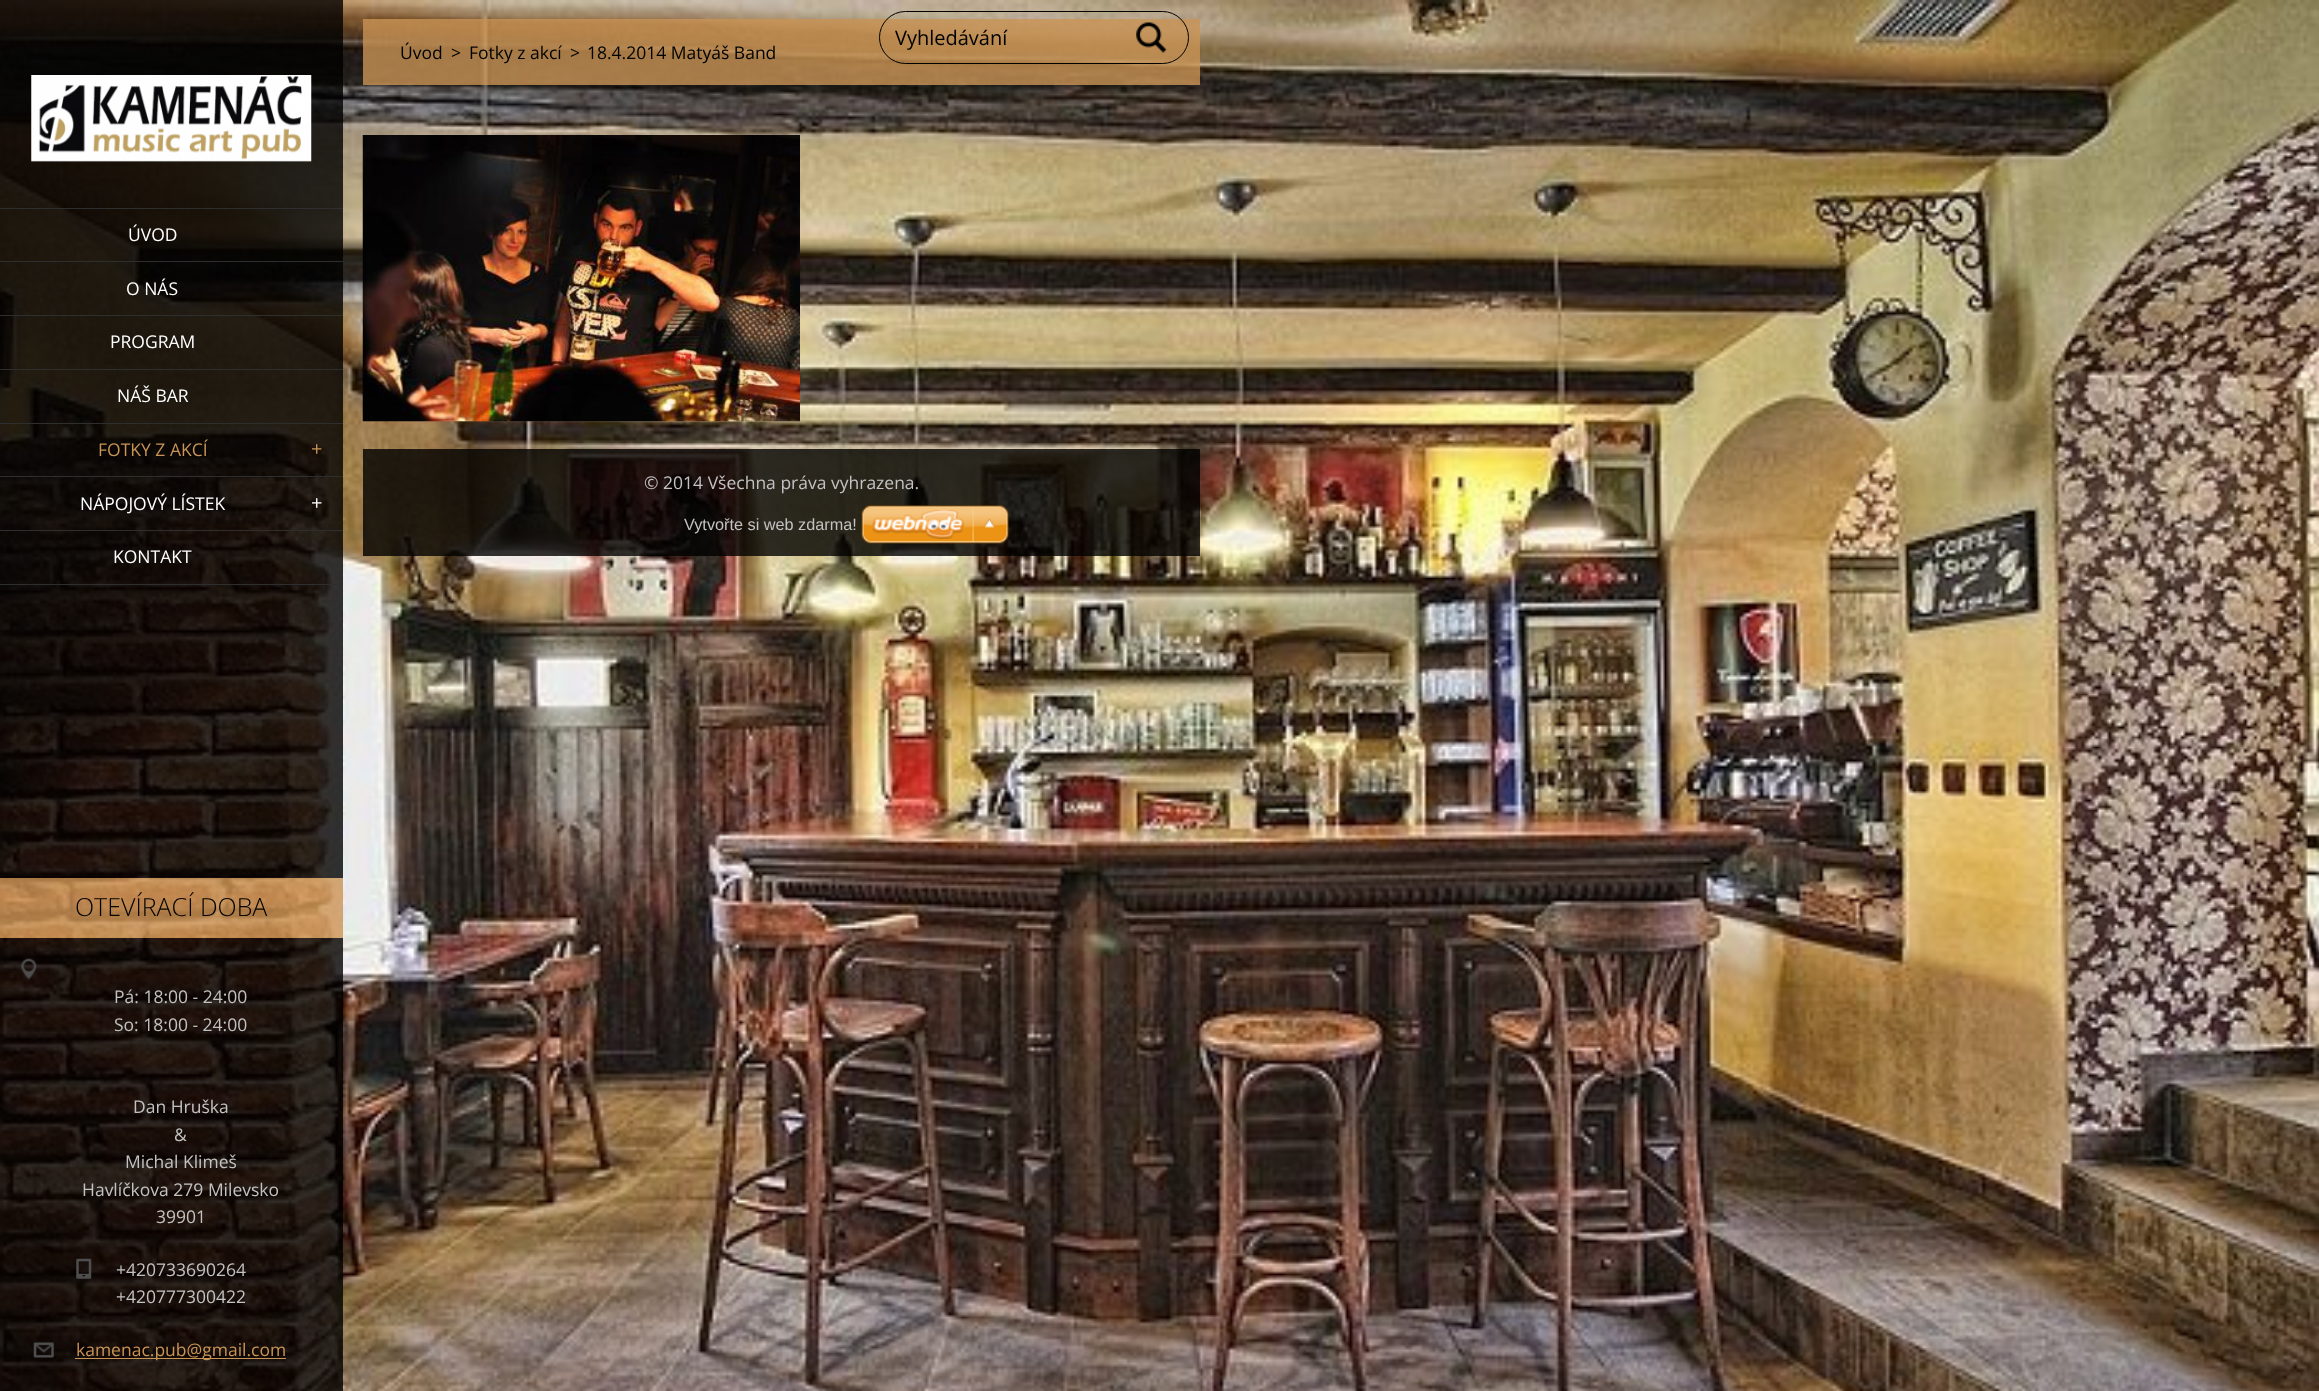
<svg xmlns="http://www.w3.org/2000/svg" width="2319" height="1391">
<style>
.a{font:20px Open Sans;fill:#000}
.b{font:17.5px Open Sans;fill:#fff}
.c{font:17.5px Open Sans;fill:#c99455}
.d{font:20px Open Sans;fill:#c99455}
.e{font:20px Open Sans;fill:#fff}
.f{font:300 25px Open Sans;fill:#000}
.g{font:17.5px Open Sans;fill:#c2c2c2}
.h{font:17.5px Open Sans;fill:#000}
.i{font:16.25px Liberation Sans;fill:#c2c2c2}
</style>
<defs>
<clipPath id="clip1"><path d="M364 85h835v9H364z"/></clipPath>
</defs>
<rect width="100%" height="100%" fill="#fff"/>
<image href="1.png" x="0" y="0" width="2319" height="1391"/>
<g clip-path="url(#clip1)">
<path fill="#00000059" filter="blur(4px)" d="M370 36h823v52H370z"/>
</g>
<path fill="#c99455cc" d="M363 19h837v66H363z"/>
<rect fill="none" stroke="#000" x="879.5" y="11.5" width="309" height="52" rx="26"/>
<image href="2.png" x="1136" y="22" width="31" height="31"/>
<path fill="#000000cc" d="M0 0h343v176H0z"/>
<image href="3.png" x="31" y="75" width="281" height="87"/>
<path fill="#000000cc" d="M0 176h343v32H0z"/>
<path fill="#000000cc" d="M0 209h343v375H0z"/>
<path fill="#2e2e2e" d="M0 208h343v1H0z"/>
<path fill="#2e2e2e" d="M0 261h343v1H0z"/>
<path fill="#2e2e2e" d="M0 315h343v1H0z"/>
<path fill="#2e2e2e" d="M0 369h343v1H0z"/>
<path fill="#2e2e2e" d="M0 423h343v1H0z"/>
<path fill="#2e2e2e" d="M0 476h343v1H0z"/>
<path fill="#2e2e2e" d="M0 530h343v1H0z"/>
<path fill="#2e2e2e" d="M0 584h343v1H0z"/>
<path fill="#000000cc" d="M0 585h343v293H0z"/>
<path fill="#c99455cc" d="M0 878h343v60H0z"/>
<path fill="#000000cc" d="M0 938h343v453H0z"/>
<image href="4.png" x="21" y="958" width="16" height="21"/>
<image href="5.png" x="76" y="1258" width="16" height="21"/>
<image href="6.png" x="33" y="1342" width="21" height="16"/>
<path fill="#c99455" d="M75 1358h211v1H75z"/>
<image href="7.png" x="362" y="135" width="438" height="287"/>
<path fill="#000000cc" d="M363 449h837v107H363z"/>
<image href="8.png" x="861" y="505" width="148" height="39"/>
<text class="a" x="895" y="45">Vyhledávání</text>
<text class="b" x="128" y="241">ÚVOD</text>
<text class="b" x="126" y="295">O NÁS</text>
<text class="b" x="110" y="348">PROGRAM</text>
<text class="b" x="117" y="402">NÁŠ BAR</text>
<text class="c" x="98" y="456">FOTKY Z AKCÍ</text>
<text class="d" x="311" y="456">+</text>
<text class="b" x="80" y="510">NÁPOJOVÝ LÍSTEK</text>
<text class="e" x="311" y="510">+</text>
<text class="b" x="113" y="563">KONTAKT</text>
<text class="f" x="75" y="916">OTEVÍRACÍ DOBA</text>
<text class="g" x="114" y="1003">Pá: 18:00 - 24:00</text>
<text class="g" x="114" y="1031">So: 18:00 - 24:00</text>
<text class="g" x="133" y="1113">Dan Hruška</text>
<text class="g" x="174" y="1141">&amp;</text>
<text class="g" x="125" y="1168">Michal Klimeš</text>
<text class="g" x="82" y="1196">Havlíčkova 279 Milevsko</text>
<text class="g" x="156" y="1223">39901</text>
<text class="g" x="116" y="1276">+420733690264</text>
<text class="g" x="116" y="1303">+420777300422</text>
<text class="c" x="76" y="1356">kamenac.pub@gmail.com</text>
<text class="h" x="400" y="59">Úvod</text>
<text class="h" x="451" y="59">&gt;</text>
<text class="h" x="469" y="59">Fotky z akcí</text>
<text class="h" x="570" y="59">&gt;</text>
<text class="h" x="587" y="59">18.4.2014 Matyáš Band</text>
<text class="g" x="644" y="489">© 2014 Všechna práva vyhrazena.</text>
<text class="i" x="684" y="530">Vytvořte si web zdarma!</text>
</svg>
